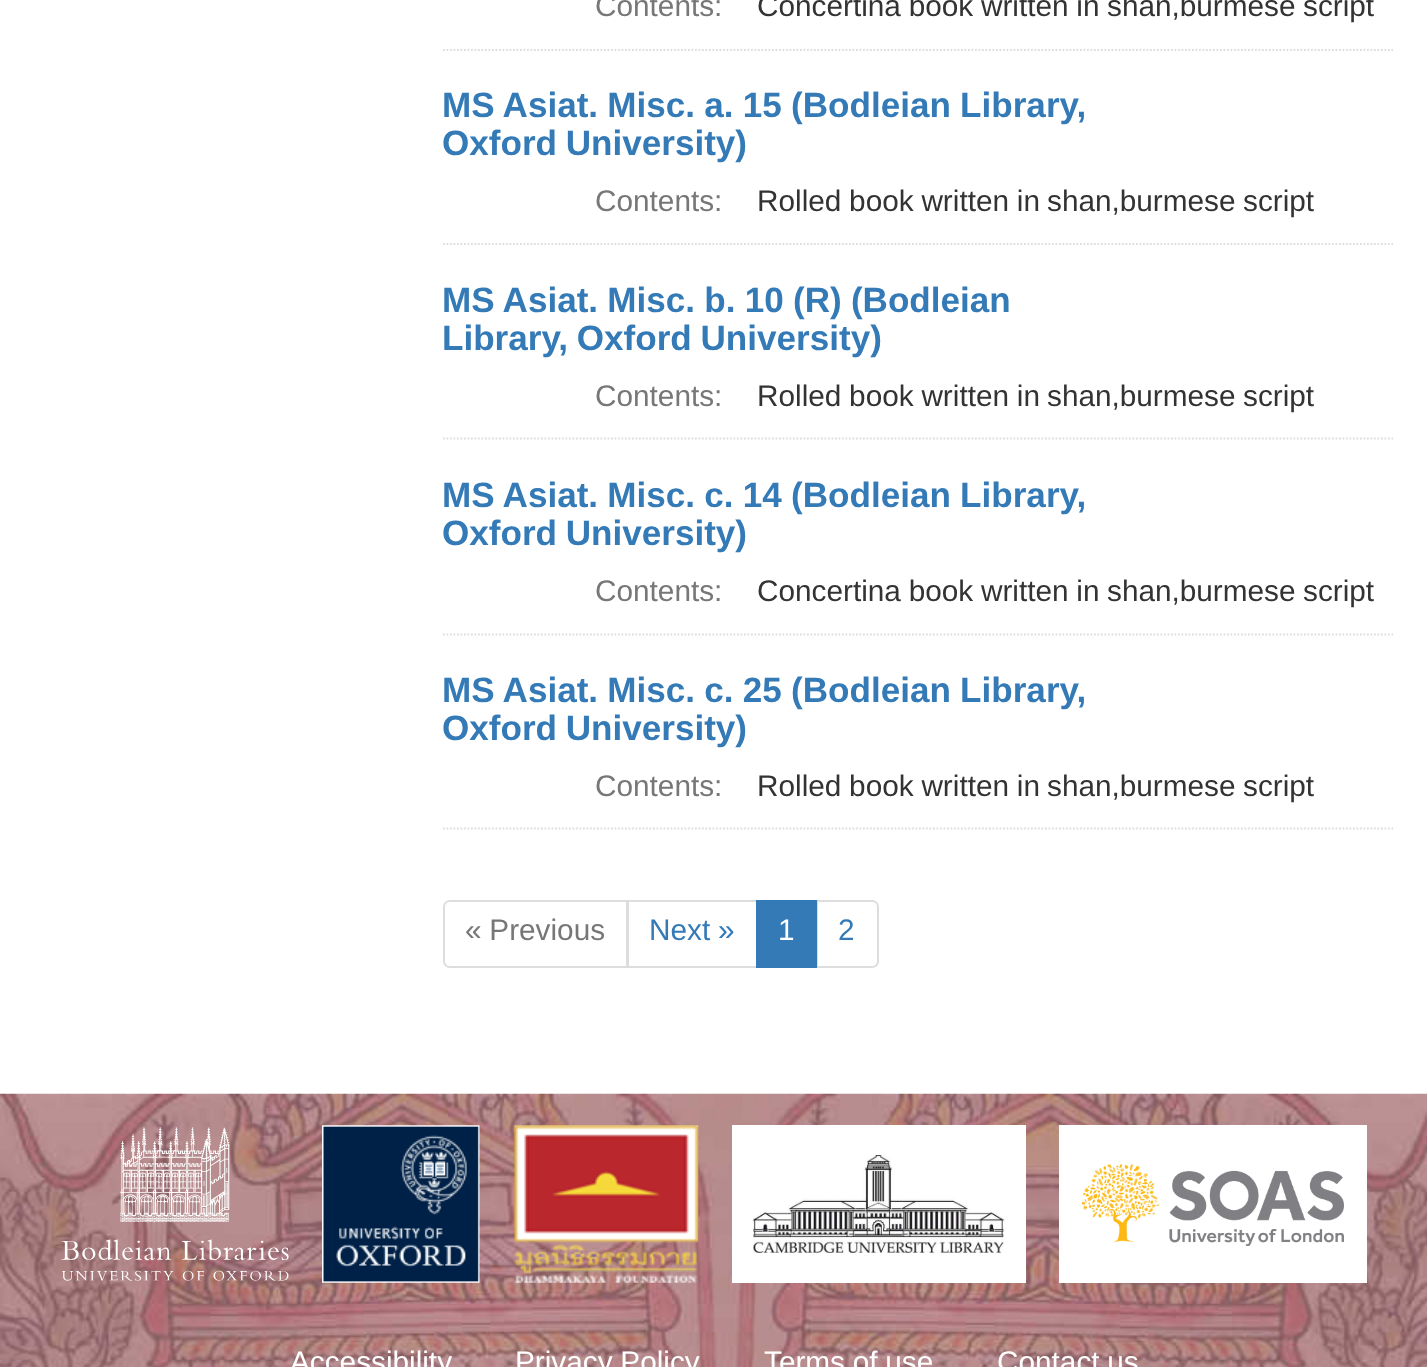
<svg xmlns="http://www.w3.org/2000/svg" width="1427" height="1367">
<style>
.a{font:29.75px Liberation Sans;fill:#777}
.b{font:29.75px Liberation Sans;fill:#333}
.c{font:bold 35.1px Liberation Sans;fill:#337ab7}
.d{font:29.75px Liberation Sans;fill:#337ab7}
.e{font:29.75px Liberation Sans;fill:#fff}
</style>
<rect width="100%" height="100%" fill="#fff"/>
<path fill="none" stroke="#ddd" stroke-width="1.8" stroke-dasharray="1.75 1.75" d="M443 50h950"/>
<path fill="none" stroke="#ddd" stroke-width="1.8" stroke-dasharray="1.75 1.75" d="M443 244h950"/>
<path fill="none" stroke="#ddd" stroke-width="1.8" stroke-dasharray="1.75 1.75" d="M443 438.5h950"/>
<path fill="none" stroke="#ddd" stroke-width="1.8" stroke-dasharray="1.75 1.75" d="M443 634.5h950"/>
<path fill="none" stroke="#ddd" stroke-width="1.8" stroke-dasharray="1.75 1.75" d="M443 828.5h950"/>
<path fill="none" stroke="#ddd" stroke-width="2" d="M450 901h177v66h-177c-3.5 0-6-2.5-6-6v-54c0-3.5 2.5-6 6-6z"/>
<path fill="none" stroke="#ddd" stroke-width="2" d="M628 901h129v66H628z"/>
<path fill="none" stroke="#ddd" stroke-width="2" d="M817 901h55c3.5 0 6 2.5 6 6v54c0 3.5-2.5 6-6 6h-55z"/>
<path fill="#337ab7" d="M756 900h61v68H756z"/>
<image href="1.png" x="0" y="1093" width="1427" height="274"/>
<image href="2.png" x="61" y="1127" width="228" height="154"/>
<image href="3.png" x="322" y="1125" width="158" height="158"/>
<image href="4.png" x="514" y="1125" width="185" height="158"/>
<path fill="#fff" d="M753 1146h252v116H753z"/>
<image href="5.png" x="753" y="1155" width="252" height="98"/>
<path fill="none" stroke="#fff" stroke-width="21" d="M742.5 1135.5h273v137H742.5z"/>
<path fill="#fff" d="M1082 1148h262v112H1082z"/>
<image href="6.png" x="1082" y="1163" width="262" height="83"/>
<path fill="none" stroke="#fff" stroke-width="23" d="M1070.5 1136.5h285v135H1070.5z"/>
<text class="a" x="595" y="16">Contents:</text>
<text class="b" x="757" y="16" word-spacing="-0.5">Concertina book written in</text>
<text class="b" x="1107" y="16">shan,burmese</text>
<text class="b" x="1303" y="16">script</text>
<text class="c" x="442" y="117" word-spacing="-0.5">MS Asiat. Misc. a. 15 (Bodleian Library,</text>
<text class="c" x="442" y="155" word-spacing="-1">Oxford University)</text>
<text class="a" x="595" y="211">Contents:</text>
<text class="b" x="757" y="211" word-spacing="-0.5">Rolled book written in</text>
<text class="b" x="1047" y="211">shan,burmese</text>
<text class="b" x="1243" y="211">script</text>
<text class="c" x="442" y="312" word-spacing="-0.5">MS Asiat. Misc. b. 10 (R) (Bodleian</text>
<text class="c" x="442" y="350" word-spacing="-1">Library, Oxford University)</text>
<text class="a" x="595" y="406">Contents:</text>
<text class="b" x="757" y="406" word-spacing="-0.5">Rolled book written in</text>
<text class="b" x="1047" y="406">shan,burmese</text>
<text class="b" x="1243" y="406">script</text>
<text class="c" x="442" y="507" word-spacing="-0.5">MS Asiat. Misc. c. 14 (Bodleian Library,</text>
<text class="c" x="442" y="545" word-spacing="-1">Oxford University)</text>
<text class="a" x="595" y="601">Contents:</text>
<text class="b" x="757" y="601" word-spacing="-0.5">Concertina book written in</text>
<text class="b" x="1107" y="601">shan,burmese</text>
<text class="b" x="1303" y="601">script</text>
<text class="c" x="442" y="702" word-spacing="-0.5">MS Asiat. Misc. c. 25 (Bodleian Library,</text>
<text class="c" x="442" y="740" word-spacing="-1">Oxford University)</text>
<text class="a" x="595" y="796">Contents:</text>
<text class="b" x="757" y="796" word-spacing="-0.5">Rolled book written in</text>
<text class="b" x="1047" y="796">shan,burmese</text>
<text class="b" x="1243" y="796">script</text>
<text class="a" x="465" y="940" word-spacing="-0.5">« Previous</text>
<text class="d" x="649" y="940" word-spacing="-0.5">Next »</text>
<text class="e" x="778" y="940">1</text>
<text class="d" x="838" y="940">2</text>
<text class="e" x="290" y="1372">Accessibility</text>
<text class="e" x="515" y="1372" word-spacing="-0.5">Privacy Policy</text>
<text class="e" x="764" y="1372" word-spacing="-0.5">Terms of use</text>
<text class="e" x="997" y="1372" word-spacing="-0.5">Contact us</text>
</svg>
